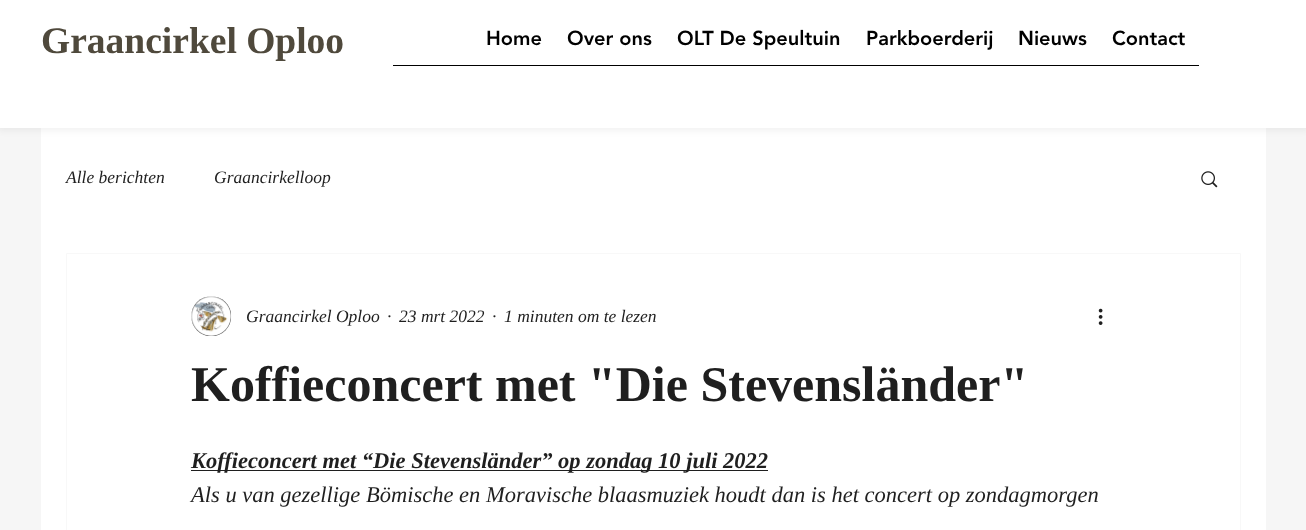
<svg xmlns="http://www.w3.org/2000/svg" width="1306" height="530">
<style>
.a{font:bold 37.5px Liberation Serif;fill:#4f493c}
.b{font:900 20px 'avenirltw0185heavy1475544';fill:#000}
.c{font:italic 17.5px Liberation Serif;fill:#1f1f1f}
.d{font:bold 50px Liberation Serif;fill:#1f1f1f}
.e{font:italic bold 22.5px Liberation Serif;fill:#1f1f1f}
.f{font:italic 22.5px Liberation Serif;fill:#1f1f1f}
</style>
<rect width="100%" height="100%" fill="#f6f6f6"/>
<path fill="#fff" d="M41 128h1225v402H41z"/>
<path fill="#0000000d" filter="blur(3px)" d="M-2 -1h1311v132H-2z"/>
<path fill="#fff" d="M0 0h1306v128H0z"/>
<path fill="#000" d="M393 65h806v1H393z"/>
<image href="1.png" x="1201" y="171" width="17" height="17"/>
<path fill="none" stroke="#f8f8f8" d="M66.5 253.5h1174v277H66.5z"/>
<image href="2.png" x="191" y="296" width="41" height="40"/>
<image href="3.png" x="1098" y="308" width="5" height="17"/>
<path fill="#1f1f1f" d="M191 470h577v1H191z"/>
<text class="a" x="41" y="53">Graancirkel Oploo</text>
<text class="b" x="486" y="45">Home</text>
<text class="b" x="567" y="45">Over ons</text>
<text class="b" x="677" y="45">OLT De Speultuin</text>
<text class="b" x="866" y="45">Parkboerderij</text>
<text class="b" x="1018" y="45">Nieuws</text>
<text class="b" x="1112" y="45">Contact</text>
<text class="c" x="66" y="183">Alle berichten</text>
<text class="c" x="214" y="183">Graancirkelloop</text>
<text class="c" x="246" y="322">Graancirkel Oploo</text>
<text class="c" x="387" y="322">·</text>
<text class="c" x="399" y="322">23 mrt 2022</text>
<text class="c" x="492" y="322">·</text>
<text class="c" x="504" y="322">1 minuten om te lezen</text>
<text class="d" x="191" y="401">Koffieconcert met "Die Stevensländer"</text>
<text class="e" x="191" y="468">Koffieconcert met “Die Stevensländer” op zondag 10 juli 2022</text>
<text class="f" x="191" y="502">Als u van gezellige Bömische en Moravische blaasmuziek houdt dan is het concert op zondagmorgen</text>
</svg>
